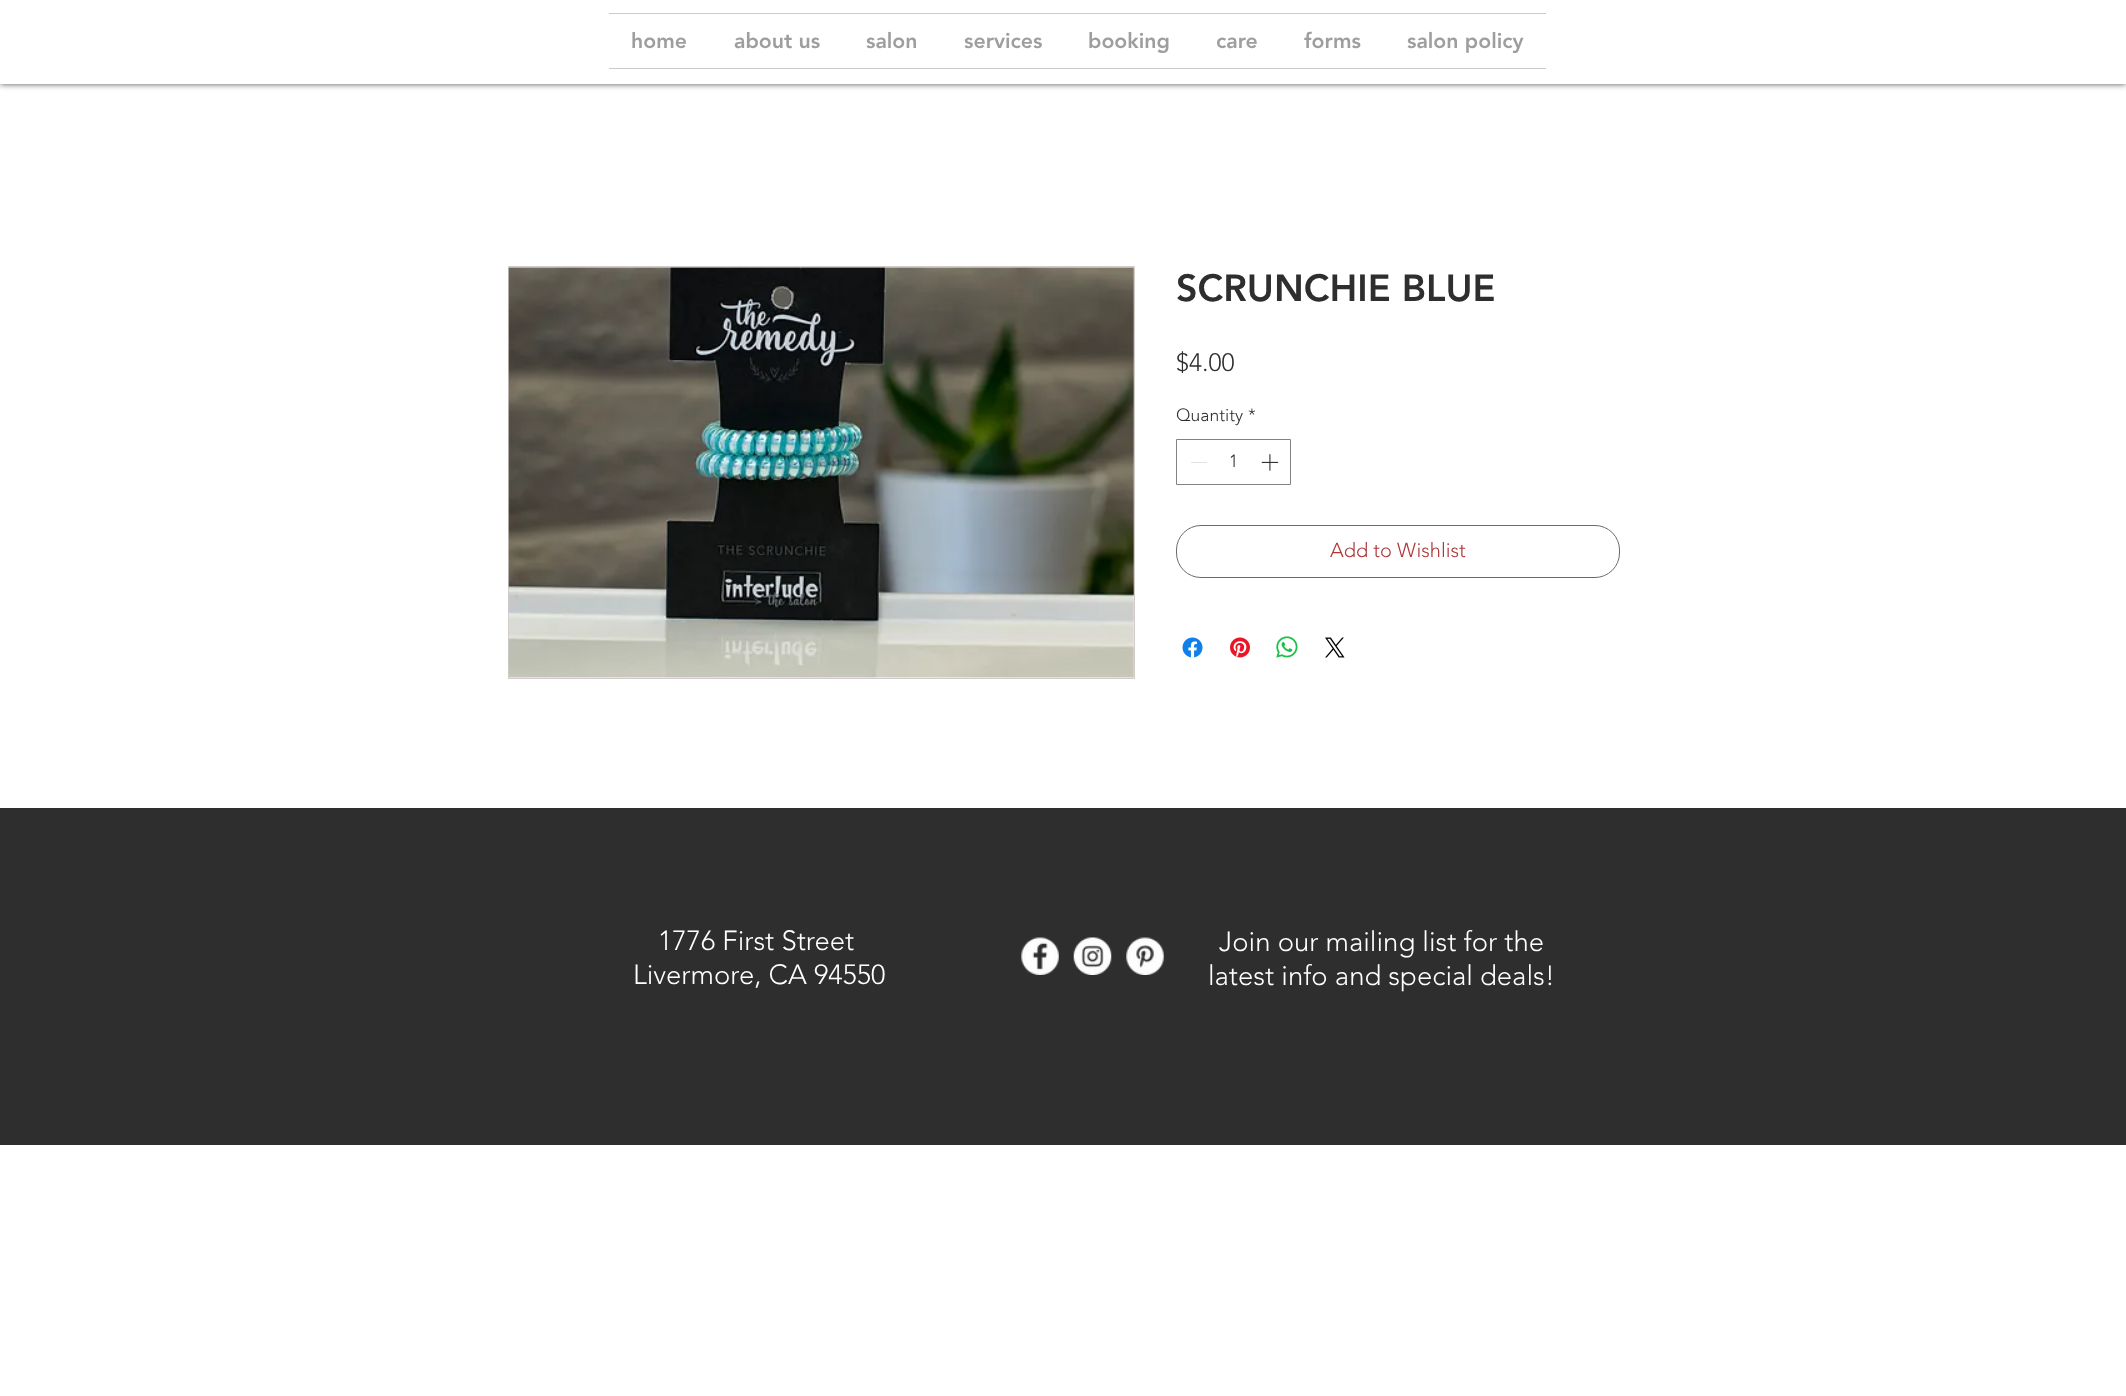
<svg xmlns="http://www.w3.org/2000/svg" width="2126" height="1396">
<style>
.a{font:900 21.25px 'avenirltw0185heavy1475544';fill:#9e9e9e}
.b{font:900 37.5px 'avenirltw0185heavy1475544';fill:#2f2e2e}
.c{font:300 25px 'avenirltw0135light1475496';fill:#2f2e2e}
.d{font:300 17.5px 'avenirltw0135light1475496';fill:#2f2e2e}
.e{font:300 20px 'avenirltw0135light1475496';fill:#b03737}
.f{font:300 27.5px 'avenirltw0135light1475496';fill:#fff}
</style>
<defs>
<clipPath id="clip1"><path d="M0 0h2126v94h-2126zm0 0h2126v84h-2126z" clip-rule="evenodd"/></clipPath>
</defs>
<rect width="100%" height="100%" fill="#fff"/>
<g clip-path="url(#clip1)">
<path fill="#000000b3" filter="blur(3px)" d="M0 0h2126v84H0z"/>
</g>
<path fill="#ffffffbf" d="M0 83h2126v1H0z"/>
<path fill="#cacaca" d="M609 13h937v1H609z"/>
<path fill="#cacaca" d="M609 68h937v1H609z"/>
<path fill="#ffffff87" d="M451 83h1225v1H451z"/>
<path fill="none" stroke="#d1cac9" d="M508.5 266.5h626v412H508.5z"/>
<image href="1.png" x="508" y="267" width="626" height="411"/>
<path fill="none" stroke="#828282" d="M1176.5 439.5h114v45H1176.5z"/>
<path fill="#e3e3e3" d="M1191 462h16v1H1191z"/>
<image href="2.png" x="1261" y="454" width="18" height="17"/>
<rect fill="none" stroke="#6e6968" x="1176.5" y="525.5" width="443" height="52" rx="24.5"/>
<image href="3.png" x="1182" y="637" width="21" height="21"/>
<image href="4.png" x="1230" y="637" width="20" height="21"/>
<image href="5.png" x="1276" y="636" width="22" height="22"/>
<image href="6.png" x="1325" y="637" width="20" height="21"/>
<path fill="#2f2e2e" d="M0 808h2126v337H0z"/>
<image href="7.png" x="1021" y="937" width="38" height="38"/>
<image href="8.png" x="1073" y="937" width="39" height="38"/>
<image href="9.png" x="1126" y="937" width="38" height="38"/>
<text class="a" x="631" y="48">home</text>
<text class="a" x="734" y="48">about us</text>
<text class="a" x="866" y="48">salon</text>
<text class="a" x="964" y="48">services</text>
<text class="a" x="1088" y="48">booking</text>
<text class="a" x="1216" y="48">care</text>
<text class="a" x="1304" y="48">forms</text>
<text class="a" x="1407" y="48">salon policy</text>
<text class="b" x="1176" y="301">SCRUNCHIE BLUE</text>
<text class="c" x="1176" y="371">$4.00</text>
<text class="d" x="1176" y="421">Quantity</text>
<text class="d" x="1248" y="421">*</text>
<text class="d" x="1229" y="467">1</text>
<text class="e" x="1330" y="557">Add to Wishlist</text>
<text class="f" x="658" y="950">1776 First Street</text>
<text class="f" x="633" y="984">Livermore, CA 94550</text>
<text class="f" x="1219" y="951">Join our mailing list for the</text>
<text class="f" x="1208" y="985">latest info and special deals!</text>
</svg>
